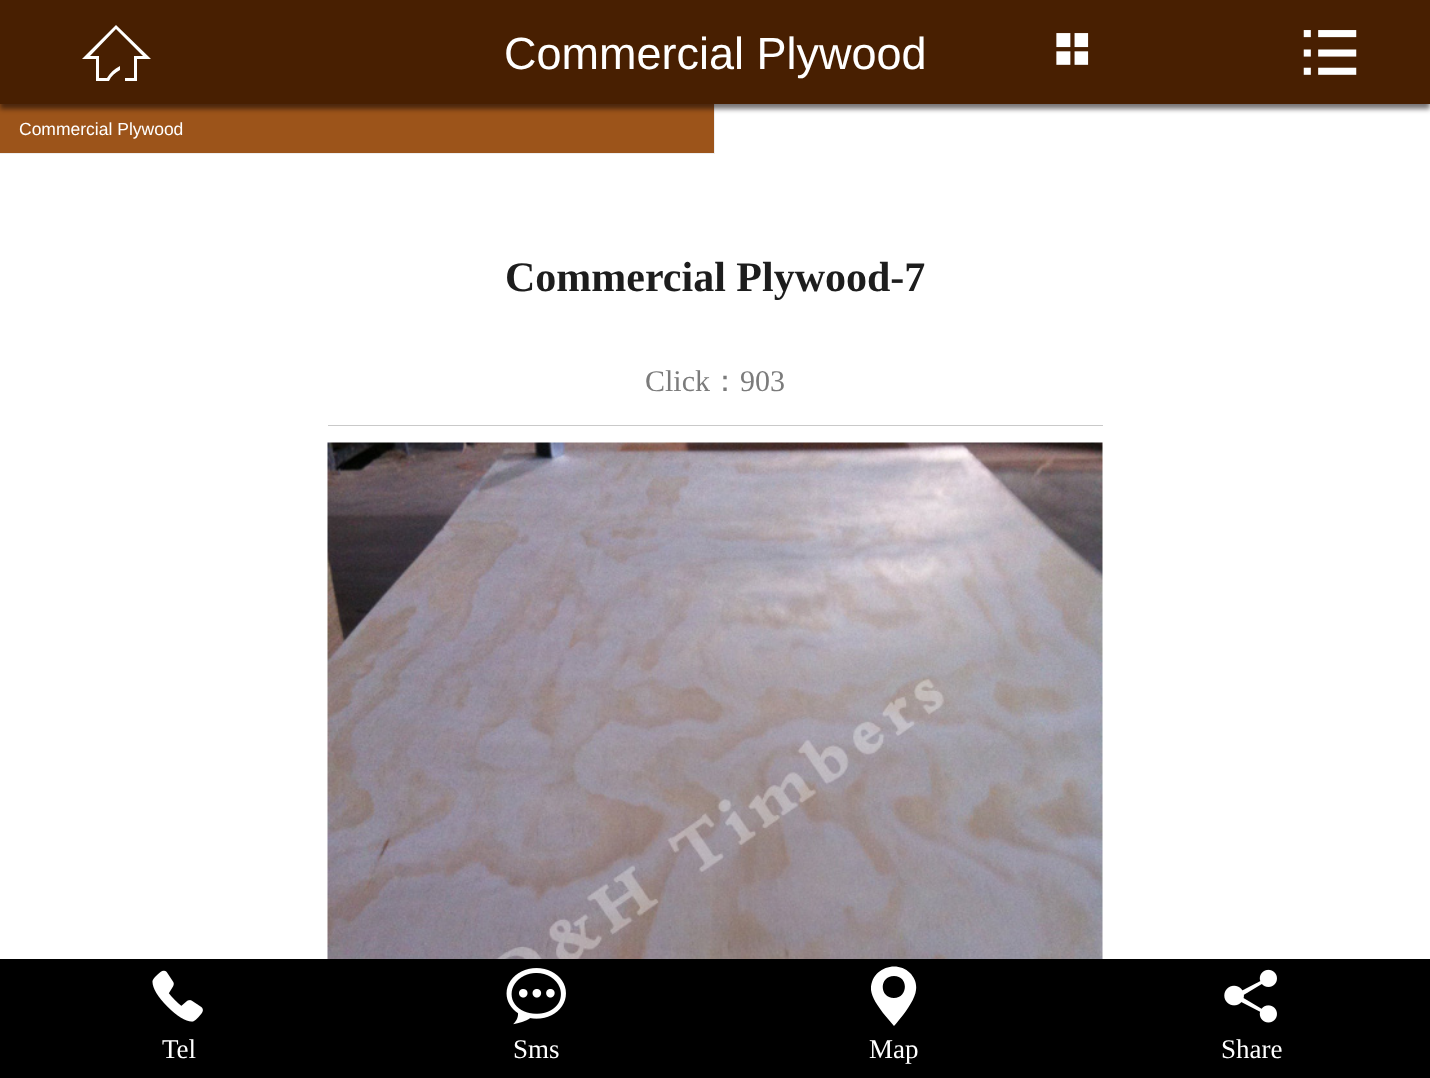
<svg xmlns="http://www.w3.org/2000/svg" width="1430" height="1078">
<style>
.a{font:45px Liberation Sans;fill:#fff}
.b{font:17.5px Liberation Sans;fill:#fff}
.c{font:bold 42px Liberation Serif;fill:#1d1d1d}
.d{font:30px Liberation Serif;fill:#7b7b7b}
.e{font:500 30px WenQuanYi Zen Hei;fill:#7b7b7b}
.f{font:27px Liberation Serif;fill:#fff}
</style>
<rect width="100%" height="100%" fill="#fff"/>
<path fill="#9c541a" d="M0 104h714v49H0z"/>
<path fill="#efefef" d="M714 104h1v50H714z"/>
<path fill="#0902048c" filter="blur(2.5px)" d="M0 5h1430v104H0z"/>
<path fill="#481f01" d="M0 0h1430v104H0z"/>
<path fill="#fff" d="M116 25l-34 34h14v22h13c2-5 6-8 11-11v-4c-6 3-10 7-13 12h-8v-22h-9l26-27l27 27h-9v22h-9v3h12v-22h14z"/>
<image href="1.png" x="1056" y="33" width="33" height="32"/>
<image href="2.png" x="1303" y="30" width="54" height="45"/>
<path fill="#efefef" d="M0 153h715v1H0z"/>
<path fill="#c9c9c9" d="M328 425h775v1H328z"/>
<image href="3.png" x="327" y="442" width="776" height="517"/>
<path fill="#000" d="M0 959h1430v119H0z"/>
<image href="4.png" x="152" y="970" width="51" height="52"/>
<image href="5.png" x="506" y="968" width="60" height="57"/>
<path fill="#fff" d="M910 973c-14-14-40-4-39 17c1 8 7 16 12 23l11 13c7-8 21-25 22-36c1-7-2-13-6-17zm-16 25c-15 0-15-22 0-22c15 0 14 22 0 22z"/>
<image href="6.png" x="1224" y="969" width="53" height="54"/>
<text class="a" x="504" y="69">Commercial Plywood</text>
<text class="b" x="19" y="135">Commercial Plywood</text>
<text class="c" x="505" y="291">Commercial Plywood-7</text>
<text class="d" x="645" y="391">Click</text>
<text class="e" x="710" y="391">：</text>
<text class="d" x="740" y="391">903</text>
<text class="f" x="162" y="1058">Tel</text>
<text class="f" x="513" y="1058">Sms</text>
<text class="f" x="869" y="1058">Map</text>
<text class="f" x="1221" y="1058">Share</text>
</svg>
